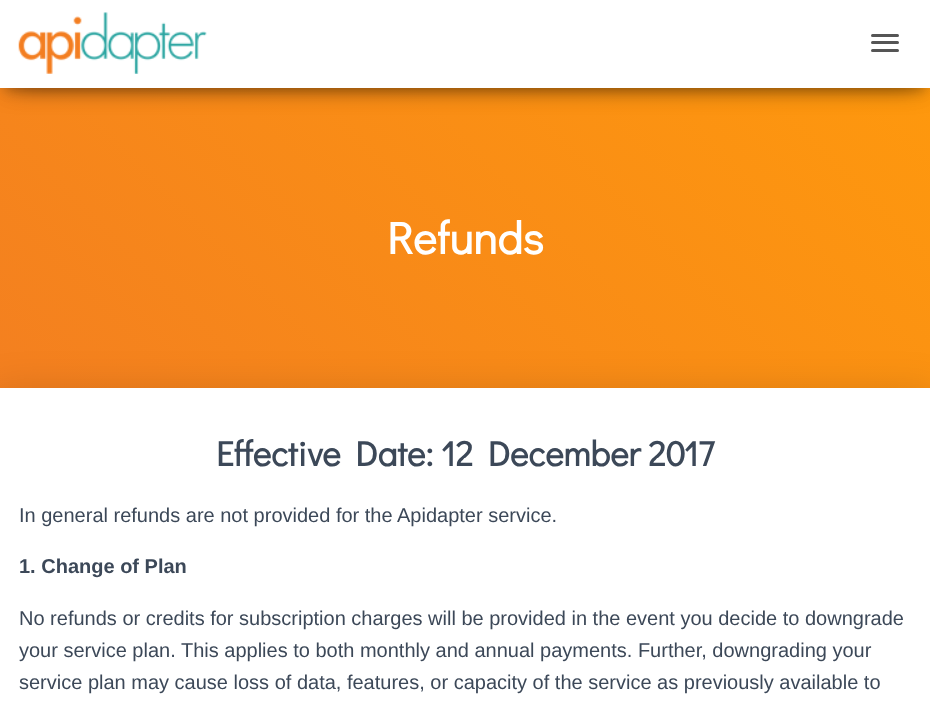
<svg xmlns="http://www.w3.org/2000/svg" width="930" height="701">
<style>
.a{font:bold 45px Didact Gothic;fill:#fff}
.b{font:bold 35px Didact Gothic;fill:#3c4858}
.c{font:20px Liberation Sans;fill:#3c4858}
.d{font:bold 20px Liberation Sans;fill:#3c4858}
</style>
<defs>
<linearGradient id="g1" gradientUnits="userSpaceOnUse" x1="117" y1="579" x2="813" y2="-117"><stop offset="0" stop-color="#f37e21"/><stop offset="1" stop-color="#ff9a0c"/></linearGradient>
</defs>
<rect width="100%" height="100%" fill="#fff"/>
<path fill="url(#g1)" d="M0 88h930v300H0z"/>
<path fill="#00000033" filter="blur(6px)" d="M6 16h918v75H6z"/>
<path fill="#0000001f" filter="blur(12.5px)" d="M0 4h930v87H0z"/>
<path fill="#0000006b" filter="blur(12.5px)" d="M15 28h900v57H15z"/>
<path fill="#fff" d="M0 0h930v88H0z"/>
<image href="1.png" x="18" y="12" width="189" height="62"/>
<rect fill="#555" x="871" y="34" width="28" height="3" rx="1.5"/>
<rect fill="#555" x="871" y="41" width="28" height="3" rx="1.5"/>
<rect fill="#555" x="871" y="49" width="28" height="3" rx="1.5"/>
<path fill="#0000001f" filter="blur(19px)" d="M-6 389h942v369H-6z"/>
<path fill="#fff" d="M0 388h930v313H0z"/>
<text class="a" x="387" y="254">Refunds</text>
<text class="b" x="216" y="466">Effective Date: 12 December 2017</text>
<text class="c" x="19" y="522">In general refunds are not provided for the Apidapter service.</text>
<text class="d" x="19" y="573">1. Change of Plan</text>
<text class="c" x="19" y="625">No refunds or credits for subscription charges will be provided in the event you decide to downgrade</text>
<text class="c" x="19" y="657">your service plan. This applies to both monthly and annual payments. Further, downgrading your</text>
<text class="c" x="19" y="689">service plan may cause loss of data, features, or capacity of the service as previously available to</text>
</svg>
